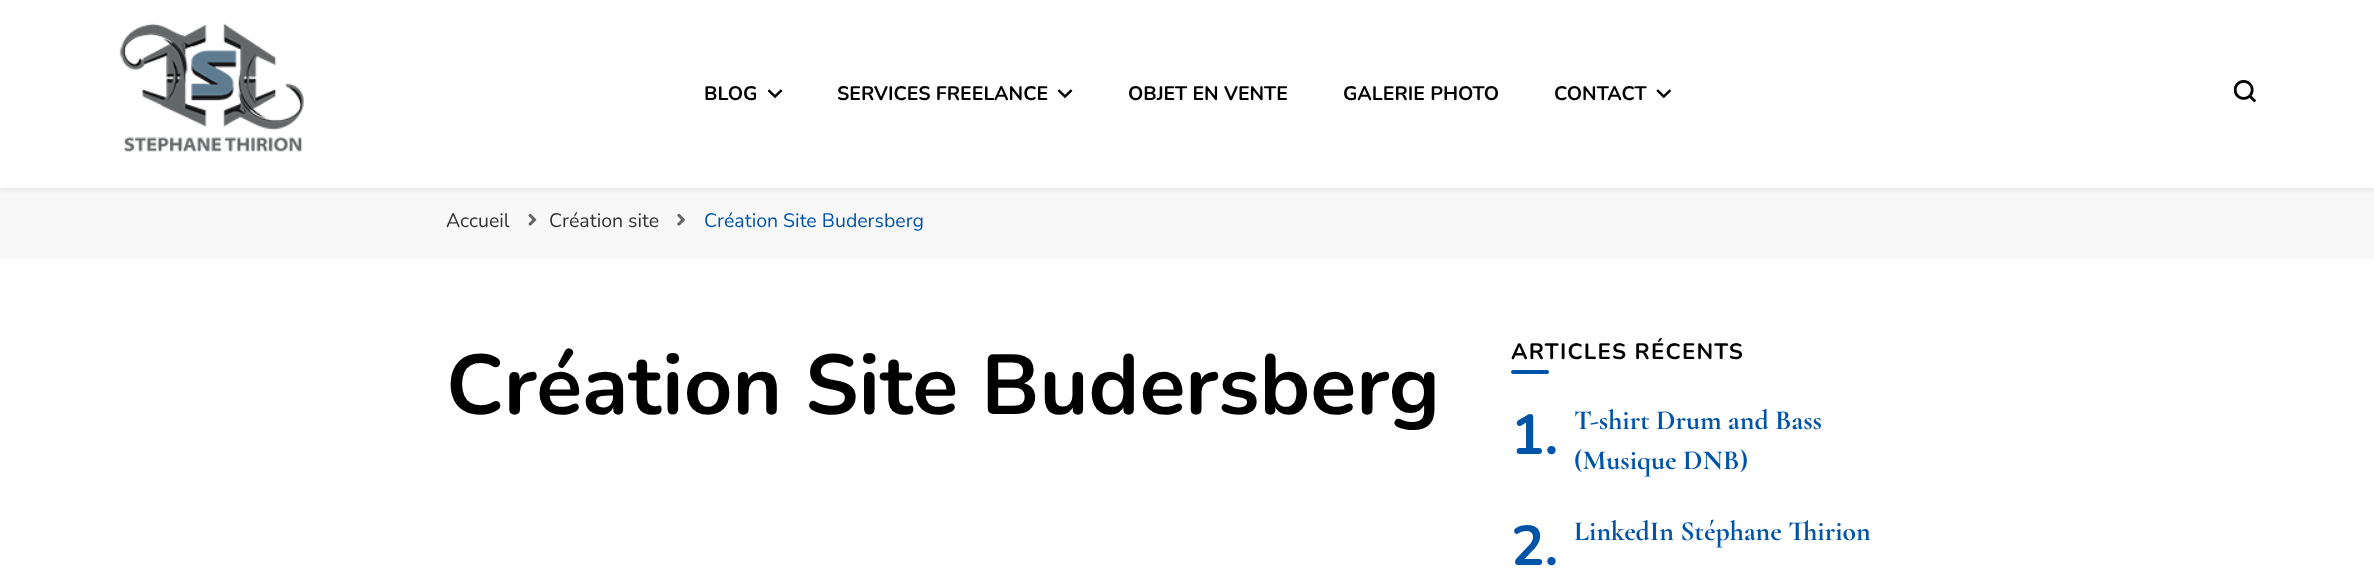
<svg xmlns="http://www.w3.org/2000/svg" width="2374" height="572">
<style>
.a{font:bold 19.5px Nunito;fill:#000}
.b{font:19.5px Nunito;fill:#333}
.c{font:19.5px Nunito;fill:#0054a8}
.d{font:bold 84.75px Nunito;fill:#000}
.e{font:bold 22.25px Nunito;letter-spacing:1.25px;fill:#000}
.f{font:bold 56px Nunito;fill:#0054a8}
.g{font:bold 27.75px Cormorant Garamond;fill:#0054a8}
</style>
<rect width="100%" height="100%" fill="#f8f8f8"/>
<path fill="#0000001a" filter="blur(3px)" d="M0 1h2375v188H0z"/>
<path fill="#fff" d="M0 0h2374v188H0z"/>
<image href="1.png" x="119" y="23" width="185" height="129"/>
<image href="2.png" x="768" y="89" width="15" height="10"/>
<image href="2.png" x="1058" y="89" width="15" height="10"/>
<image href="3.png" x="1656" y="89" width="15" height="10"/>
<image href="4.png" x="2234" y="80" width="22" height="23"/>
<image href="5.png" x="528" y="213" width="9" height="13"/>
<image href="6.png" x="677" y="213" width="8" height="13"/>
<path fill="#fff" d="M0 259h2374v313H0z"/>
<rect fill="#0054a8" x="1511" y="370" width="38" height="4" rx="2"/>
<text class="a" x="704" y="100">BLOG</text>
<text class="a" x="837" y="100">SERVICES FREELANCE</text>
<text class="a" x="1128" y="100">OBJET EN VENTE</text>
<text class="a" x="1343" y="100">GALERIE PHOTO</text>
<text class="a" x="1554" y="100">CONTACT</text>
<text class="b" x="446" y="227">Accueil</text>
<text class="b" x="549" y="227">Création site</text>
<text class="c" x="704" y="227">Création Site Budersberg</text>
<text class="d" x="446" y="414">Création Site Budersberg</text>
<text class="e" x="1511" y="359">ARTICLES RÉCENTS</text>
<text class="f" x="1511" y="454">1.</text>
<text class="g" x="1574" y="429">T-shirt Drum and Bass</text>
<text class="g" x="1574" y="469">(Musique DNB)</text>
<text class="f" x="1511" y="565">2.</text>
<text class="g" x="1574" y="540">LinkedIn Stéphane Thirion</text>
</svg>
